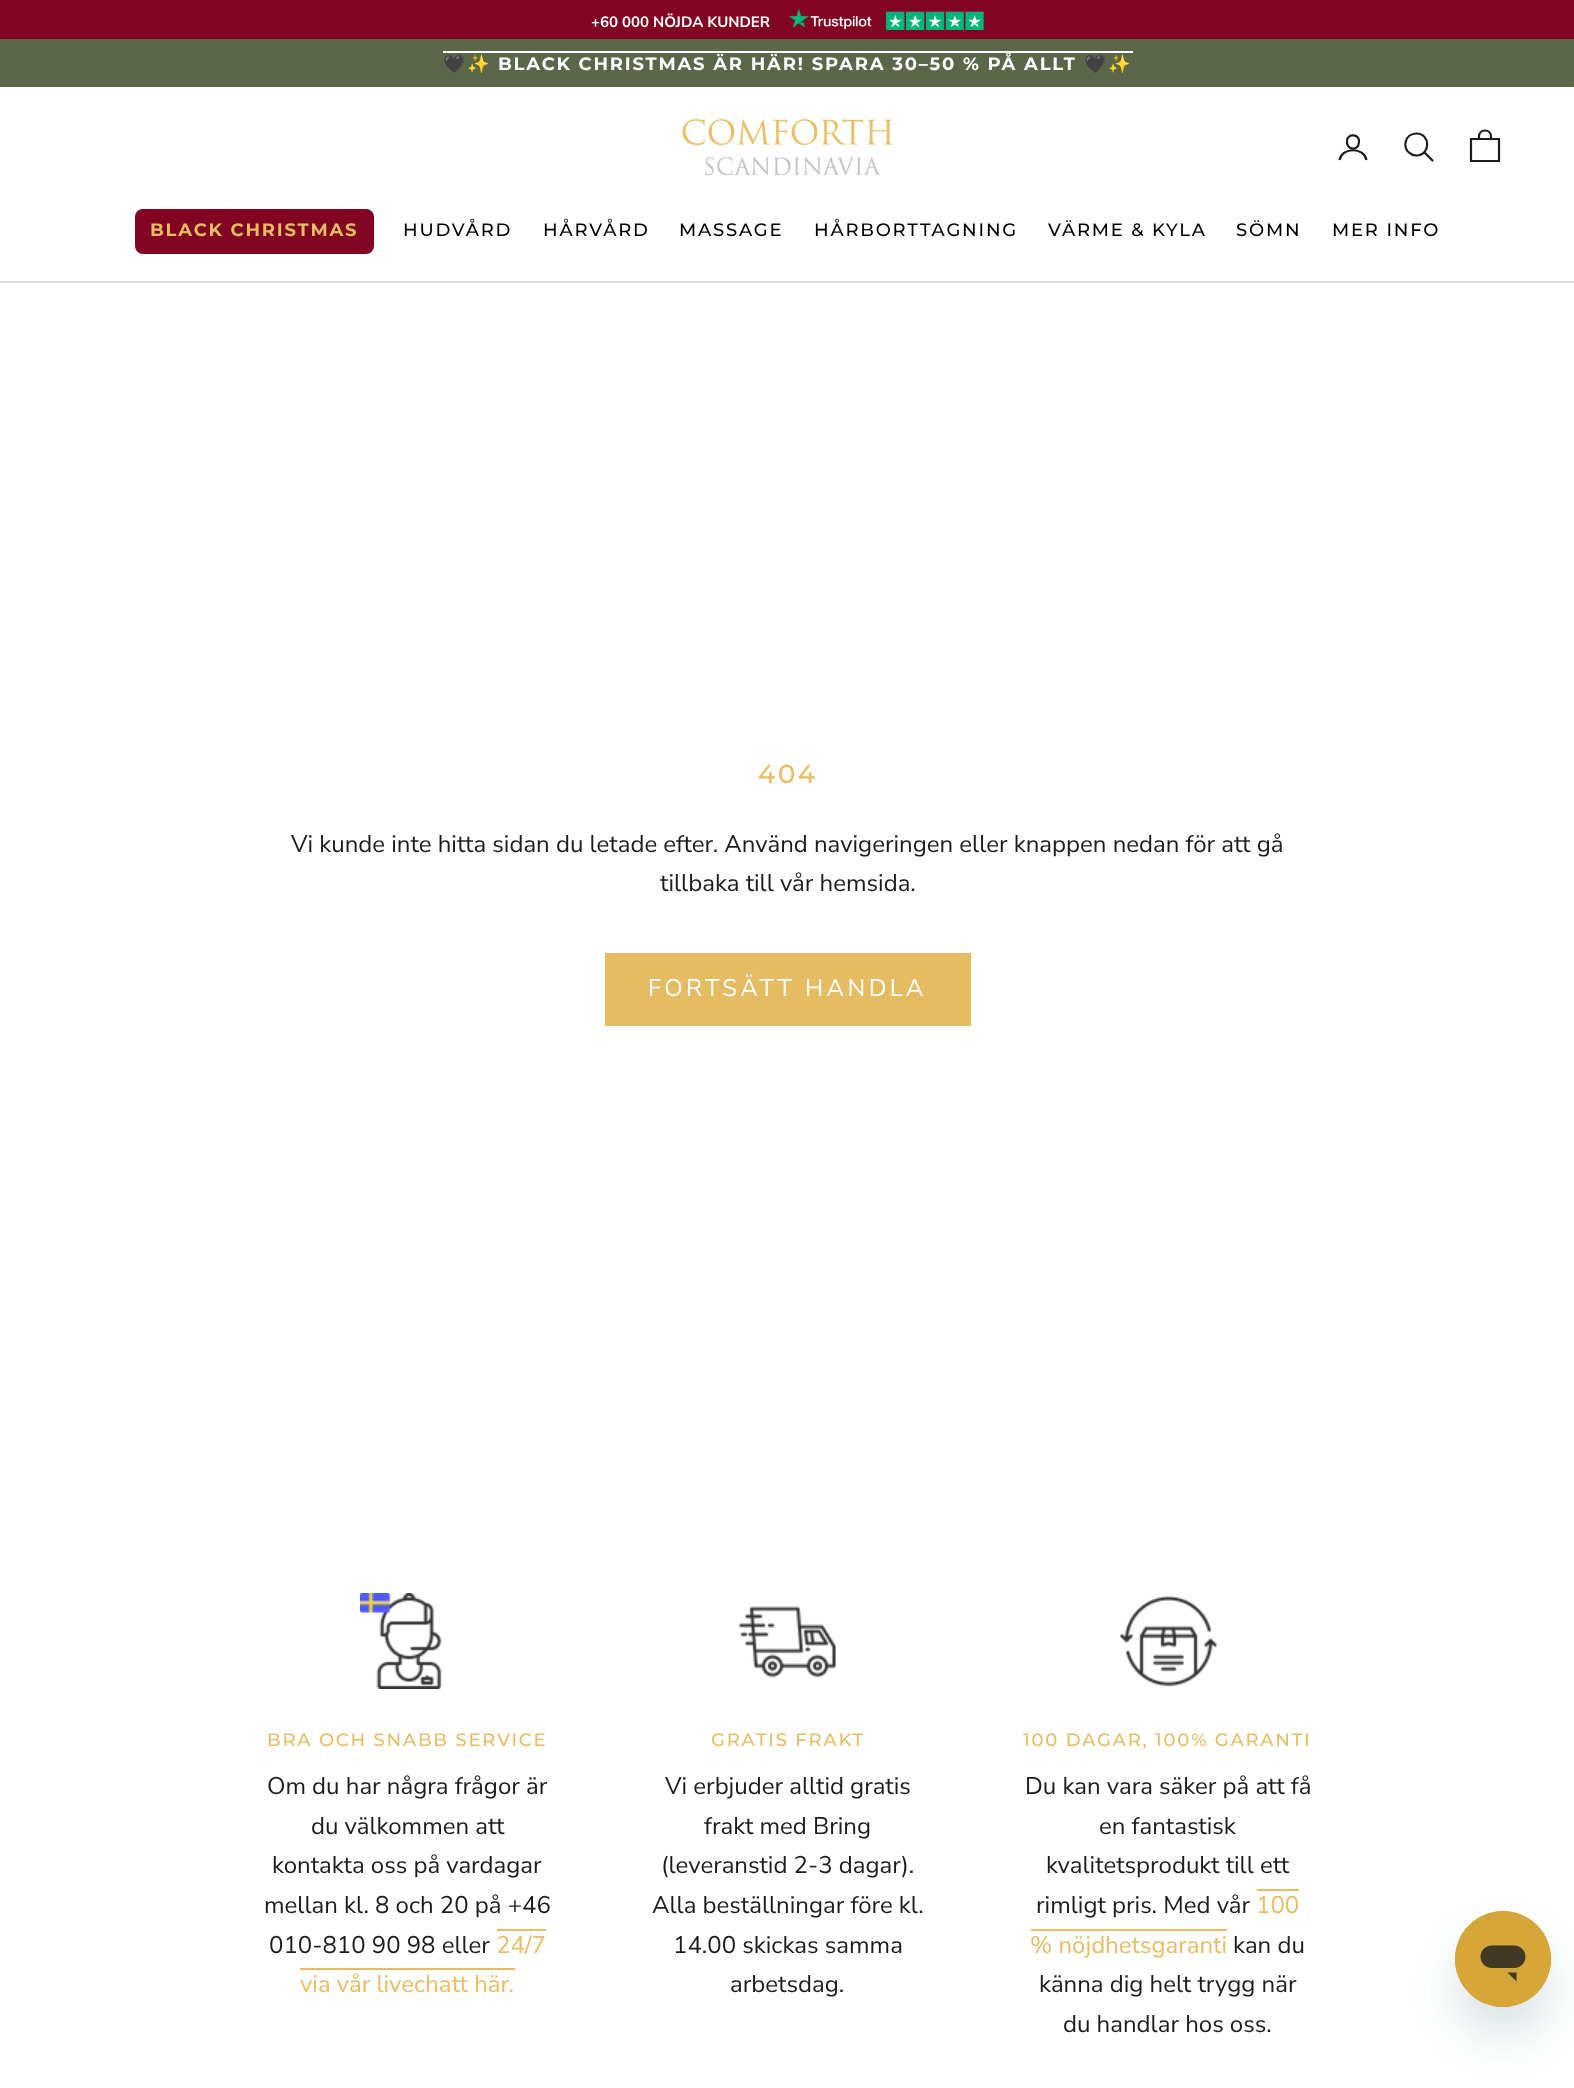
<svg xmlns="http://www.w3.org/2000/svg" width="1574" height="2088">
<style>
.a{font:bold 15px Nunito Sans;fill:#fff}
.b{font:bold 18px Noto Color Emoji;letter-spacing:1.8px;fill:#fff}
.c{font:bold 18px Montserrat;letter-spacing:1.8px;fill:#fff}
.d{font:bold 18px Montserrat;letter-spacing:1.8px;fill:#e6bd63}
.e{font:500 18px Montserrat;letter-spacing:1.8px;fill:#000}
.f{font:500 26px Montserrat;letter-spacing:2.5px;fill:#e6bd63}
.g{font:24px Nunito Sans;fill:#1c1c1c}
.h{font:24px Nunito Sans;letter-spacing:3.4px;fill:#fff}
.i{font:500 18px Montserrat;letter-spacing:1.8px;fill:#e6bd63}
.j{font:24px Nunito Sans;fill:#e6bd63}
</style>
<rect width="100%" height="100%" fill="#fff"/>
<path fill="#810522" d="M0 0h1574v39H0z"/>
<image href="1.png" x="789" y="9" width="195" height="21"/>
<path fill="#5c6648" d="M0 39h1574v48H0z"/>
<path fill="#fff" d="M443 51h690v2H443z"/>
<path fill="#ddd" d="M0 281h1574v2H0z"/>
<image href="2.png" x="682" y="119" width="211" height="57"/>
<path fill="none" stroke="#1c1c1c" stroke-width="2.2" stroke-linecap="round" stroke-linejoin="round" d="M1359 142c-.5 10-13.5 8-12-1.5c1-7.5 13-6.5 12 1.5z"/>
<path fill="none" stroke="#1c1c1c" stroke-width="2.2" d="M1339.5 160c2.5-13 24.5-13 27 0"/>
<path fill="none" stroke="#1c1c1c" stroke-width="2.2" d="M1416.5 133.5c-11.5 0-15.5 15-5.5 20.5c1.5 1 3.5 1.5 5.5 1.5c14.5-.5 14-22 0-22z"/>
<path fill="none" stroke="#1c1c1c" stroke-width="2.2" stroke-linecap="round" d="M1425 153l7.5 7.5"/>
<path fill="none" stroke="#1c1c1c" stroke-width="2.2" d="M1499 161v-22h-28v22zm-20-23v-1.5c0-3.5 2.5-6 6-6c3.5 0 6 2.5 6 6v1.5"/>
<rect fill="#810522" x="135" y="209" width="239" height="45" rx="8"/>
<path fill="#e6bc62" stroke="#e6bc62" stroke-width="2" d="M606 954h364v71H606z"/>
<image href="3.png" x="360" y="1593" width="82" height="96"/>
<path fill="#e6bd63" d="M497 1929h49v2H497z"/>
<path fill="#e6bd63" d="M300 1968h215v2H300z"/>
<image href="4.png" x="739" y="1606" width="97" height="72"/>
<image href="5.png" x="1120" y="1595" width="97" height="92"/>
<path fill="#e6bd63" d="M1257 1889h42v2H1257z"/>
<path fill="#e6bd63" d="M1031 1929h196v2H1031z"/>
<rect fill="#17494d26" filter="blur(22.5px)" x="1455" y="1941" width="96" height="96" rx="48"/>
<image href="6.png" x="1455" y="1911" width="96" height="96"/>
<text class="a" x="591" y="27">+60 000 NÖJDA KUNDER</text>
<text class="b" x="443" y="70">🖤✨</text>
<text class="c" x="498" y="70">BLACK CHRISTMAS ÄR HÄR! SPARA 30–50 % PÅ ALLT</text>
<text class="b" x="1084" y="70">🖤✨</text>
<text class="d" x="150" y="236">BLACK CHRISTMAS</text>
<text class="e" x="403" y="236">HUDVÅRD</text>
<text class="e" x="543" y="236">HÅRVÅRD</text>
<text class="e" x="679" y="236">MASSAGE</text>
<text class="e" x="814" y="236">HÅRBORTTAGNING</text>
<text class="e" x="1048" y="236">VÄRME &amp; KYLA</text>
<text class="e" x="1236" y="236">SÖMN</text>
<text class="e" x="1332" y="236">MER INFO</text>
<text class="f" x="758" y="783">404</text>
<text class="g" x="291" y="852">Vi kunde inte hitta sidan du letade efter. Använd navigeringen eller knappen nedan för att gå</text>
<text class="g" x="660" y="891">tillbaka till vår hemsida.</text>
<text class="h" x="648" y="996">FORTSÄTT HANDLA</text>
<text class="i" x="267" y="1746">BRA OCH SNABB SERVICE</text>
<text class="g" x="267" y="1794">Om du har några frågor är</text>
<text class="g" x="311" y="1834">du välkommen att</text>
<text class="g" x="272" y="1873">kontakta oss på vardagar</text>
<text class="g" x="264" y="1913">mellan kl. 8 och 20 på +46</text>
<text class="g" x="269" y="1953">010-810 90 98 eller</text>
<text class="j" x="496" y="1953">24/7</text>
<text class="j" x="300" y="1992">via vår livechatt här.</text>
<text class="i" x="711" y="1746">GRATIS FRAKT</text>
<text class="g" x="665" y="1794">Vi erbjuder alltid gratis</text>
<text class="g" x="704" y="1834">frakt med Bring</text>
<text class="g" x="661" y="1873">(leveranstid 2-3 dagar).</text>
<text class="g" x="652" y="1913">Alla beställningar före kl.</text>
<text class="g" x="673" y="1953">14.00 skickas samma</text>
<text class="g" x="730" y="1992">arbetsdag.</text>
<text class="i" x="1023" y="1746">100 DAGAR, 100% GARANTI</text>
<text class="g" x="1025" y="1794">Du kan vara säker på att få</text>
<text class="g" x="1099" y="1834">en fantastisk</text>
<text class="g" x="1046" y="1873">kvalitetsprodukt till ett</text>
<text class="g" x="1036" y="1913">rimligt pris. Med vår</text>
<text class="j" x="1256" y="1913">100</text>
<text class="j" x="1030" y="1953">% nöjdhetsgaranti</text>
<text class="g" x="1233" y="1953">kan du</text>
<text class="g" x="1039" y="1992">känna dig helt trygg när</text>
<text class="g" x="1063" y="2032">du handlar hos oss.</text>
</svg>
